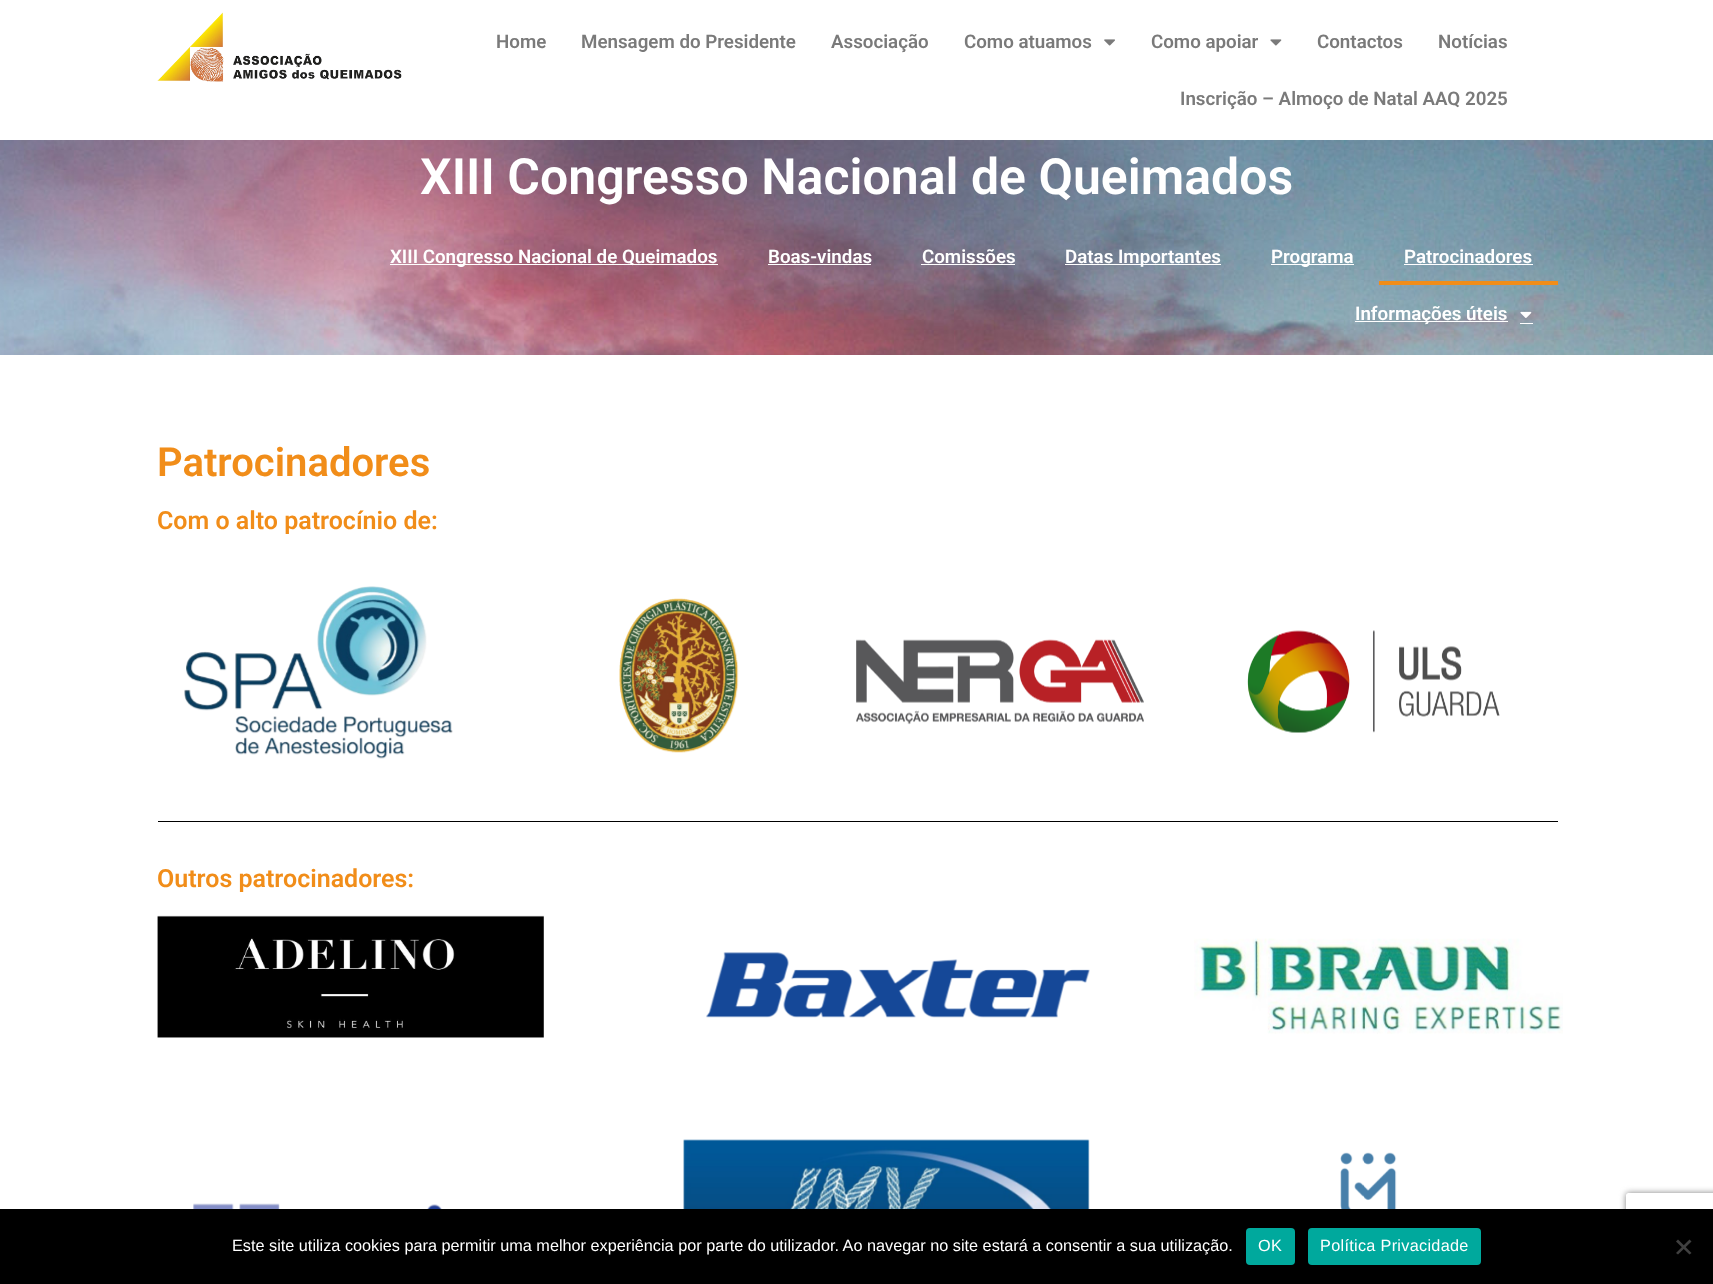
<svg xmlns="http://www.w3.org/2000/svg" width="1713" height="1284">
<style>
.a{font:600 18.75px Roboto;fill:#7a7a7a}
.b{font:600 50px Roboto;fill:#fff}
.c{font:600 18.75px Roboto;fill:#fff}
.d{font:600 40px Roboto;fill:#f18d19}
.e{font:600 25px Roboto;fill:#f18d19}
.f{font:16.25px Liberation Sans;fill:#fff}
.g{font:16.25px Liberation Sans;letter-spacing:0.3px;fill:#fff}
</style>
<defs>
<clipPath id="clip1"><path d="M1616 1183h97v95h-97zm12.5 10h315c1.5 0 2.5 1 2.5 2.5v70c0 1.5-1 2.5-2.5 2.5h-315c-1.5 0-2.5-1-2.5-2.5v-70c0-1.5 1-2.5 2.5-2.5z" clip-rule="evenodd"/></clipPath>
</defs>
<rect width="100%" height="100%" fill="#fff"/>
<image href="1.png" x="157" y="12" width="245" height="70"/>
<image href="2.png" x="1104" y="39" width="11" height="7"/>
<image href="3.png" x="1270" y="39" width="12" height="7"/>
<image href="4.png" x="0" y="140" width="1713" height="215"/>
<path fill="#fff" d="M390 264h328v1H390z"/>
<path fill="#fff" d="M768 264h103v1H768z"/>
<path fill="#fff" d="M921 264h94v1H921z"/>
<path fill="#fff" d="M1065 264h156v1H1065z"/>
<path fill="#fff" d="M1271 264h83v1H1271z"/>
<path fill="#fff" d="M1404 264h129v1H1404z"/>
<path fill="#f18d19" d="M1379 281h179v4H1379z"/>
<path fill="#fff" d="M1355 321h153v1H1355z"/>
<image href="5.png" x="1520" y="311" width="12" height="7"/>
<path fill="#fff" d="M1520 323h13v1H1520z"/>
<image href="6.png" x="184" y="586" width="269" height="173"/>
<image href="7.png" x="619" y="598" width="120" height="155"/>
<image href="8.png" x="856" y="639" width="288" height="86"/>
<image href="9.png" x="1247" y="630" width="253" height="103"/>
<path fill="#000" d="M158 821h1400v1H158z"/>
<image href="10.png" x="157" y="915" width="387" height="123"/>
<image href="11.png" x="706" y="952" width="384" height="66"/>
<image href="12.png" x="1194" y="938" width="369" height="96"/>
<image href="13.png" x="192" y="1203" width="250" height="6"/>
<image href="14.png" x="683" y="1139" width="407" height="70"/>
<image href="15.png" x="1340" y="1152" width="57" height="57"/>
<g clip-path="url(#clip1)">
<rect fill="#808080" filter="blur(3px)" x="1626" y="1193" width="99" height="75" rx="2.5"/>
</g>
<path fill="#000" d="M0 1209h1713v75H0z"/>
<rect fill="#00a99d" x="1246" y="1228" width="49" height="37" rx="4"/>
<rect fill="#00a99d" x="1308" y="1228" width="173" height="37" rx="4"/>
<path fill="#404040" d="M1689.5 1239.5l2 2l-13.5 13l-2-1.5z"/>
<path fill="#404040" d="M1676 1241.5l2-2l13.5 13.5l-2 1.5z"/>
<text class="a" x="496" y="48">Home</text>
<text class="a" x="581" y="48">Mensagem do Presidente</text>
<text class="a" x="831" y="48">Associação</text>
<text class="a" x="964" y="48">Como atuamos</text>
<text class="a" x="1151" y="48">Como apoiar</text>
<text class="a" x="1317" y="48">Contactos</text>
<text class="a" x="1438" y="48">Notícias</text>
<text class="a" x="1180" y="105">Inscrição – Almoço de Natal AAQ 2025</text>
<text class="b" x="420" y="194">XIII Congresso Nacional de Queimados</text>
<text class="c" x="390" y="263">XIII Congresso Nacional de Queimados</text>
<text class="c" x="768" y="263">Boas-vindas</text>
<text class="c" x="922" y="263">Comissões</text>
<text class="c" x="1065" y="263">Datas Importantes</text>
<text class="c" x="1271" y="263">Programa</text>
<text class="c" x="1404" y="263">Patrocinadores</text>
<text class="c" x="1355" y="320">Informações úteis</text>
<text class="d" x="157" y="476">Patrocinadores</text>
<text class="e" x="157" y="529">Com o alto patrocínio de:</text>
<text class="e" x="157" y="887">Outros patrocinadores:</text>
<text class="f" x="232" y="1251">Este site utiliza cookies para permitir uma melhor experiência por parte do utilizador. Ao navegar no site estará a consentir a sua utilização.</text>
<text class="g" x="1258" y="1251">OK</text>
<text class="g" x="1320" y="1251">Política Privacidade</text>
</svg>
